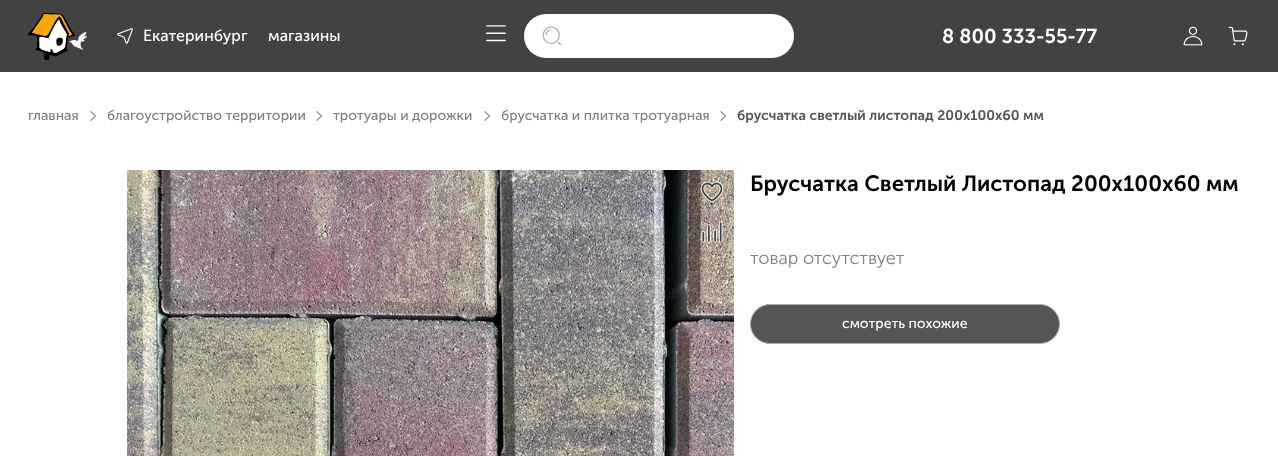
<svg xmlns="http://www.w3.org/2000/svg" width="1278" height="456">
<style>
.a{font:16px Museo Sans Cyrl;fill:#fff}
.b{font:600 20px Museo Sans Cyrl;fill:#fff}
.c{font:14px Museo Sans Cyrl;fill:#807f7f}
.d{font:600 14px Museo Sans Cyrl;fill:#555554}
.e{font:600 22px Museo Sans Cyrl;fill:#000}
.f{font:300 18px Museo Sans Cyrl;fill:#807f7f}
.g{font:14px Museo Sans Cyrl;fill:#fff}
</style>
<rect width="100%" height="100%" fill="#fff"/>
<path fill="#424242" d="M0 0h1278v72H0z"/>
<image href="1.png" x="28" y="13" width="59" height="47"/>
<image href="2.png" x="117" y="28" width="16" height="16"/>
<image href="3.png" x="486" y="25" width="20" height="17"/>
<rect fill="#fff" x="524" y="14" width="270" height="44" rx="22"/>
<image href="4.png" x="542" y="26" width="20" height="20"/>
<image href="5.png" x="1183" y="26" width="20" height="20"/>
<image href="6.png" x="1228" y="26" width="20" height="20"/>
<image href="7.png" x="90" y="111" width="6" height="10"/>
<image href="7.png" x="316" y="111" width="6" height="10"/>
<image href="7.png" x="484" y="111" width="6" height="10"/>
<image href="7.png" x="720" y="111" width="6" height="10"/>
<image href="8.png" x="127" y="170" width="607" height="286"/>
<image href="9.png" x="700" y="181" width="24" height="22"/>
<image href="10.png" x="701" y="221" width="22" height="22"/>
<rect fill="#555554" stroke="#aaaaa9" x="750.5" y="304.5" width="309" height="39" rx="19.5"/>
<text class="a" x="143" y="41">Екатеринбург</text>
<text class="a" x="268" y="41">магазины</text>
<text class="b" x="942" y="43">8 800 333-55-77</text>
<text class="c" x="28" y="120">главная</text>
<text class="c" x="107" y="120">благоустройство территории</text>
<text class="c" x="333" y="120">тротуары и дорожки</text>
<text class="c" x="501" y="120">брусчатка и плитка тротуарная</text>
<text class="d" x="737" y="120">брусчатка светлый листопад 200х100х60 мм</text>
<text class="e" x="750" y="191">Брусчатка Светлый Листопад 200х100х60 мм</text>
<text class="f" x="750" y="264">товар отсутствует</text>
<text class="g" x="842" y="328">смотреть похожие</text>
</svg>
